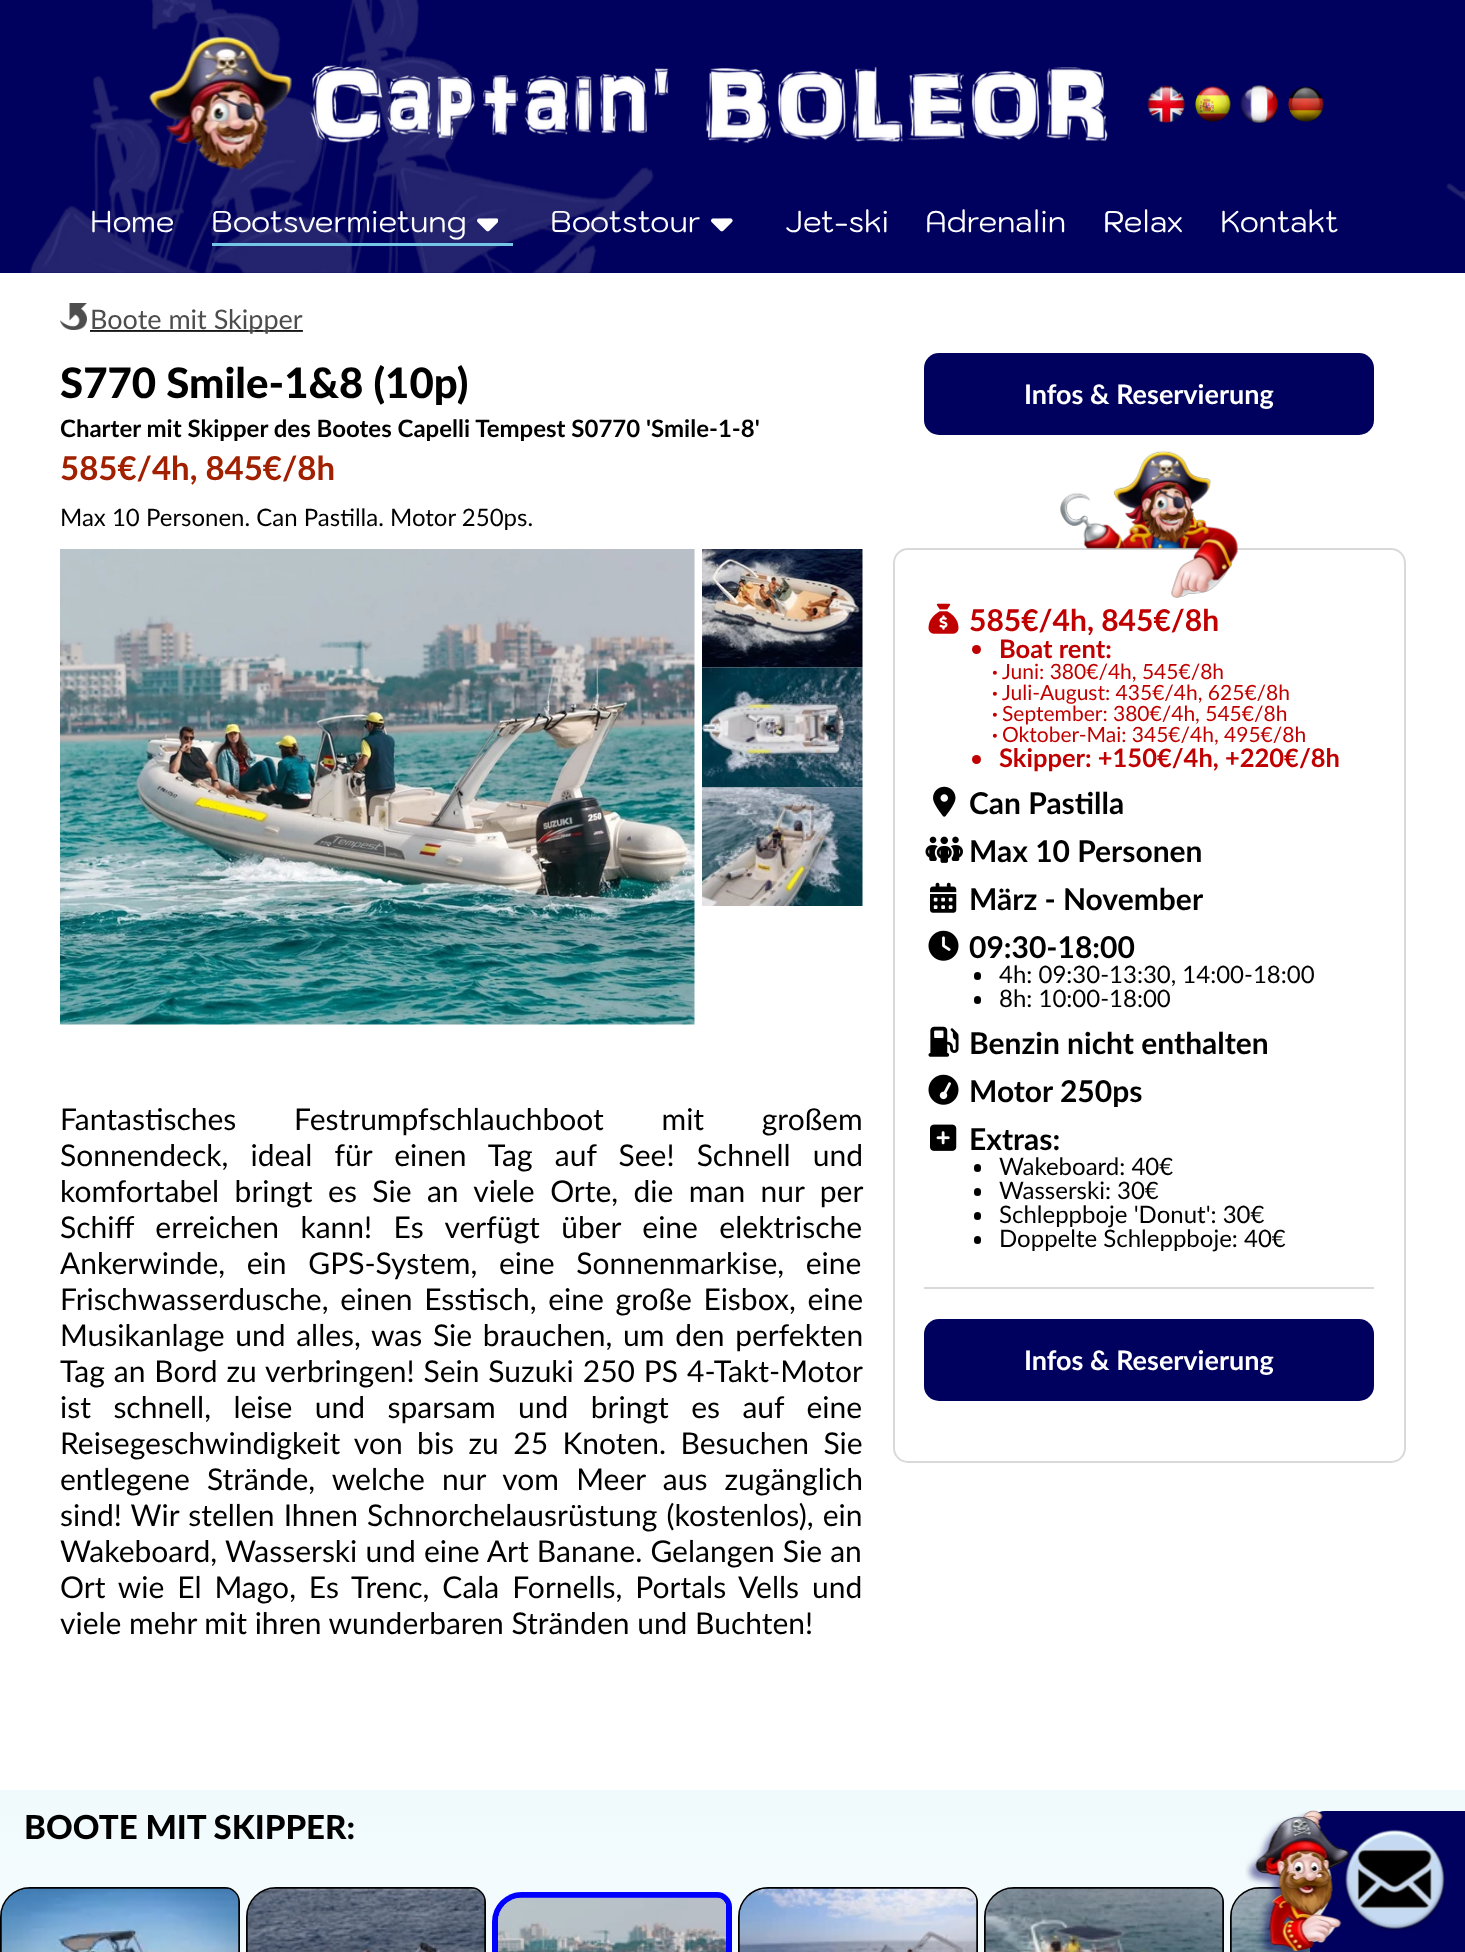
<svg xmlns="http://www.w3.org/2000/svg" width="1465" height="1952">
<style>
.a{font:30px Kodchasan;fill:#fff}
.b{font:27px Lato;fill:#4d4d4d}
.c{font:900 42px Lato;fill:#000}
.d{font:bold 24px Lato;fill:#000}
.e{font:bold 33px Lato;fill:#a02000}
.f{font:24px Lato;fill:#000}
.g{font:bold 27px Lato;fill:#fff}
.h{font:bold 30px Lato;fill:#c00000}
.i{font:bold 25.5px Lato;fill:#c00000}
.j{font:bold 21px Lato;fill:#c00000}
.k{font:21px Lato;fill:#c00000}
.l{font:bold 30px Lato;fill:#000}
.m{font:30px Lato;fill:#000}
.n{font:900 33px Lato;fill:#000}
</style>
<defs>
<linearGradient id="g1" gradientUnits="userSpaceOnUse" x1="733" y1="1790" x2="733" y2="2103"><stop offset="0" stop-color="#f0fafd"/><stop offset="1" stop-color="#f9fdfe"/></linearGradient>
</defs>
<rect width="100%" height="100%" fill="#fff"/>
<path fill="#00005e" d="M0 0h1465v273H0z"/>
<image href="1.png" x="30" y="0" width="624" height="273"/>
<image href="2.png" x="149" y="36" width="143" height="134"/>
<image href="3.png" x="310" y="65" width="798" height="79"/>
<image href="4.png" x="1147" y="85" width="38" height="38"/>
<image href="5.png" x="1195" y="86" width="36" height="36"/>
<image href="6.png" x="1240" y="85" width="38" height="38"/>
<image href="7.png" x="1288" y="86" width="36" height="36"/>
<image href="8.png" x="1446" y="183" width="19" height="18"/>
<image href="9.png" x="477" y="218" width="21" height="14"/>
<path fill="#74c6e7" d="M212 243h301v3H212z"/>
<image href="10.png" x="711" y="218" width="22" height="14"/>
<image href="11.png" x="60" y="303" width="243" height="29"/>
<path fill="#000000b3" d="M90 330h213v2H90z"/>
<rect fill="#00005e" x="924" y="353" width="450" height="82" rx="15"/>
<image href="12.png" x="60" y="549" width="635" height="476"/>
<image href="13.png" x="702" y="549" width="161" height="119"/>
<image href="14.png" x="702" y="667" width="161" height="121"/>
<image href="15.png" x="702" y="787" width="161" height="119"/>
<rect fill="none" stroke="#d9d9d9" stroke-width="2" x="894" y="549" width="511" height="913" rx="14"/>
<image href="16.png" x="1060" y="451" width="178" height="147"/>
<path fill="#d9d9d9" d="M924 1287h450v2H924z"/>
<image href="17.png" x="928" y="603" width="31" height="31"/>
<circle fill="#c00000" cx="976.5" cy="649.5" r="4.5"/>
<circle fill="#c00000" cx="976.5" cy="759.5" r="4.5"/>
<image href="18.png" x="933" y="786" width="23" height="31"/>
<image href="19.png" x="925" y="836" width="38" height="27"/>
<image href="20.png" x="930" y="882" width="27" height="31"/>
<image href="21.png" x="928" y="930" width="31" height="31"/>
<rect fill="#000" x="974" y="972" width="7" height="8" rx="3.5"/>
<rect fill="#000" x="974" y="996" width="7" height="8" rx="3.5"/>
<image href="22.png" x="928" y="1026" width="31" height="31"/>
<image href="23.png" x="928" y="1074" width="31" height="31"/>
<image href="24.png" x="930" y="1124" width="27" height="27"/>
<rect fill="#000" x="974" y="1164" width="7" height="8" rx="3.5"/>
<rect fill="#000" x="974" y="1188" width="7" height="8" rx="3.5"/>
<rect fill="#000" x="974" y="1212" width="7" height="8" rx="3.5"/>
<rect fill="#000" x="974" y="1236" width="7" height="8" rx="3.5"/>
<rect fill="#00005e" x="924" y="1319" width="450" height="82" rx="15"/>
<path fill="url(#g1)" d="M0 1790h1465v162H0z"/>
<path fill="none" stroke="#000" stroke-width="2" d="M30 1888h195c7.5 0 14 6.5 14 14v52c0 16-13 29-29 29h-195c-7.5 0-14-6.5-14-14v-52c0-16 13-29 29-29z"/>
<image href="25.png" x="1" y="1888" width="238" height="64"/>
<path fill="none" stroke="#000" stroke-width="2" d="M276 1888h195c7.5 0 14 6.5 14 14v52c0 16-13 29-29 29h-195c-7.5 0-14-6.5-14-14v-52c0-16 13-29 29-29z"/>
<image href="26.png" x="247" y="1888" width="238" height="64"/>
<path fill="none" stroke="#00f" stroke-width="6" d="M522 1895h195c6.5 0 12 5.5 12 12v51c0 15-12 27-27 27h-195c-6.5 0-12-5.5-12-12v-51c0-15 12-27 27-27z"/>
<image href="27.png" x="498" y="1897" width="228" height="55"/>
<path fill="none" stroke="#000" stroke-width="2" d="M768 1888h195c7.5 0 14 6.5 14 14v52c0 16-13 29-29 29h-195c-7.5 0-14-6.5-14-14v-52c0-16 13-29 29-29z"/>
<image href="28.png" x="739" y="1888" width="238" height="64"/>
<path fill="none" stroke="#000" stroke-width="2" d="M1014 1888h195c7.5 0 14 6.5 14 14v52c0 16-13 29-29 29h-195c-7.5 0-14-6.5-14-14v-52c0-16 13-29 29-29z"/>
<image href="29.png" x="985" y="1888" width="238" height="64"/>
<path fill="none" stroke="#000" stroke-width="2" d="M1260 1888h195c7.5 0 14 6.5 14 14v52c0 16-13 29-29 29h-195c-7.5 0-14-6.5-14-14v-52c0-16 13-29 29-29z"/>
<image href="30.png" x="1231" y="1888" width="79" height="64"/>
<path fill="#00005e" d="M1325 1811h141v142h-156v-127c0-8.5 6.5-15 15-15z"/>
<image href="31.png" x="1245" y="1810" width="105" height="142"/>
<image href="32.png" x="1343" y="1829" width="102" height="102"/>
<text class="a" x="90" y="232">Home</text>
<text class="a" x="211" y="232">Bootsvermietung</text>
<text class="a" x="550" y="232">Bootstour</text>
<text class="a" x="785" y="232">Jet-ski</text>
<text class="a" x="925" y="232">Adrenalin</text>
<text class="a" x="1103" y="232">Relax</text>
<text class="a" x="1220" y="232">Kontakt</text>
<text class="b" x="90" y="329">Boote mit Skipper</text>
<text class="c" x="60" y="398">S770 Smile-1&amp;8 (10p)</text>
<text class="d" x="60" y="437">Charter mit Skipper des Bootes Capelli Tempest S0770 'Smile-1-8'</text>
<text class="e" x="60" y="480">585€/4h, 845€/8h</text>
<text class="f" x="60" y="526">Max 10 Personen. Can Pastilla. Motor 250ps.</text>
<text class="g" x="1024" y="404">Infos &amp; Reservierung</text>
<text class="h" x="969" y="631">585€/4h, 845€/8h</text>
<text class="i" x="999" y="658">Boat rent:</text>
<text class="j" x="992" y="679">·</text>
<text class="k" x="1002" y="679">Juni: 380€/4h, 545€/8h</text>
<text class="j" x="992" y="700">·</text>
<text class="k" x="1002" y="700">Juli-August: 435€/4h, 625€/8h</text>
<text class="j" x="992" y="721">·</text>
<text class="k" x="1002" y="721">September: 380€/4h, 545€/8h</text>
<text class="j" x="992" y="742">·</text>
<text class="k" x="1002" y="742">Oktober-Mai: 345€/4h, 495€/8h</text>
<text class="i" x="999" y="767">Skipper: +150€/4h, +220€/8h</text>
<text class="l" x="969" y="814">Can Pastilla</text>
<text class="l" x="969" y="862">Max 10 Personen</text>
<text class="l" x="969" y="910">März - November</text>
<text class="l" x="969" y="958">09:30-18:00</text>
<text class="f" x="999" y="983">4h: 09:30-13:30, 14:00-18:00</text>
<text class="f" x="999" y="1007">8h: 10:00-18:00</text>
<text class="l" x="969" y="1054">Benzin nicht enthalten</text>
<text class="l" x="969" y="1102">Motor 250ps</text>
<text class="l" x="969" y="1150">Extras:</text>
<text class="f" x="999" y="1175">Wakeboard: 40€</text>
<text class="f" x="999" y="1199">Wasserski: 30€</text>
<text class="f" x="999" y="1223">Schleppboje 'Donut': 30€</text>
<text class="f" x="999" y="1247">Doppelte Schleppboje: 40€</text>
<text class="g" x="1024" y="1370">Infos &amp; Reservierung</text>
<text class="m" x="60" y="1130" word-spacing="50">Fantastisches Festrumpfschlauchboot mit großem</text>
<text class="m" x="60" y="1166" word-spacing="14.5">Sonnendeck, ideal für einen Tag auf See! Schnell und</text>
<text class="m" x="60" y="1202" word-spacing="7.75">komfortabel bringt es Sie an viele Orte, die man nur per</text>
<text class="m" x="60" y="1238" word-spacing="13.75">Schiff erreichen kann! Es verfügt über eine elektrische</text>
<text class="m" x="60" y="1274" word-spacing="14">Ankerwinde, ein GPS-System, eine Sonnenmarkise, eine</text>
<text class="m" x="60" y="1310" word-spacing="4">Frischwasserdusche, einen Esstisch, eine große Eisbox, eine</text>
<text class="m" x="60" y="1346" word-spacing="3">Musikanlage und alles, was Sie brauchen, um den perfekten</text>
<text class="m" x="60" y="1382" word-spacing="1.25">Tag an Bord zu verbringen! Sein Suzuki 250 PS 4-Takt-Motor</text>
<text class="m" x="60" y="1418" word-spacing="14.75">ist schnell, leise und sparsam und bringt es auf eine</text>
<text class="m" x="60" y="1454" word-spacing="6.75">Reisegeschwindigkeit von bis zu 25 Knoten. Besuchen Sie</text>
<text class="m" x="60" y="1490" word-spacing="9.5">entlegene Strände, welche nur vom Meer aus zugänglich</text>
<text class="m" x="60" y="1526" word-spacing="1.5">sind! Wir stellen Ihnen Schnorchelausrüstung (kostenlos), ein</text>
<text class="m" x="60" y="1562" word-spacing="0.5">Wakeboard, Wasserski und eine Art Banane. Gelangen Sie an</text>
<text class="m" x="60" y="1598" word-spacing="5.25">Ort wie El Mago, Es Trenc, Cala Fornells, Portals Vells und</text>
<text class="m" x="60" y="1634">viele mehr mit ihren wunderbaren Stränden und Buchten!</text>
<text class="n" x="24" y="1839">BOOTE MIT SKIPPER:</text>
</svg>
